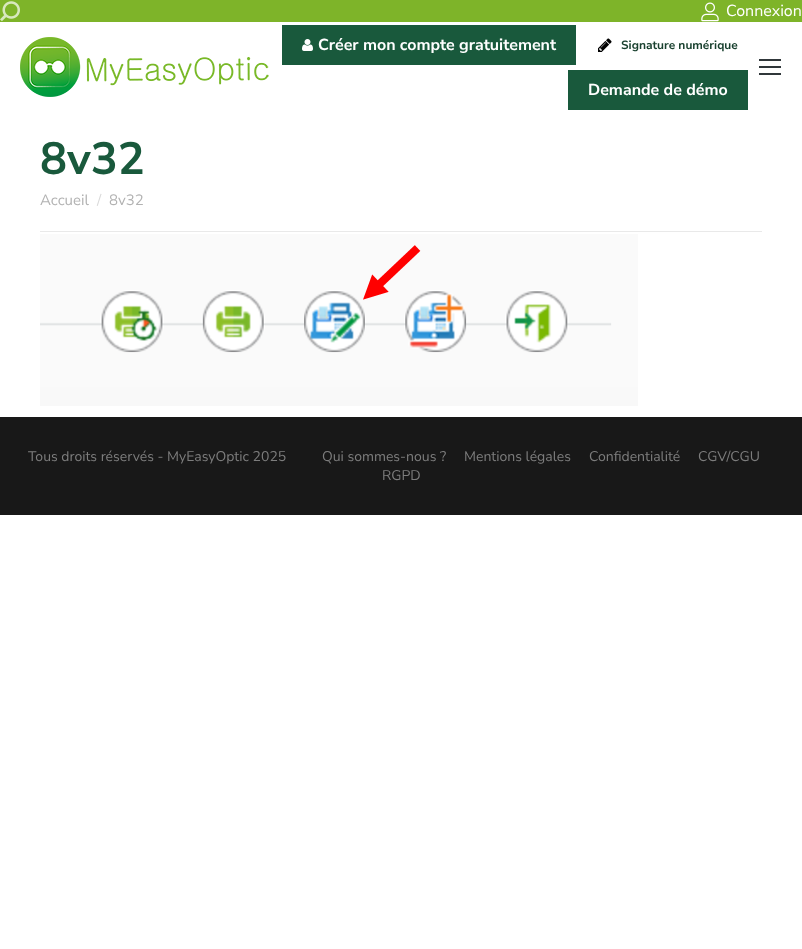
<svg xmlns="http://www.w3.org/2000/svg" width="802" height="949">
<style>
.a{font:16px Nunito Sans;fill:#fff}
.b{font:bold 16px Nunito Sans;fill:#fff}
.c{font:bold 12px Nunito Sans;fill:#18402e}
.d{font:bold 45px Nunito Sans;fill:#19593c}
.e{font:15px Nunito Sans;fill:#b2b2b2}
.f{font:15px Nunito Sans;fill:#d9d9d9}
.g{font:14px Nunito Sans;fill:#7d7d7d}
</style>
<rect width="100%" height="100%" fill="#fff"/>
<path fill="#7eb429" d="M0 0h802v22H0z"/>
<image href="1.png" x="0" y="1" width="20" height="21"/>
<image href="2.png" x="701" y="2" width="18" height="20"/>
<image href="3.png" x="20" y="37" width="249" height="60"/>
<path fill="#19593c" d="M282 25h294v40H282z"/>
<image href="4.png" x="302" y="39" width="11" height="12"/>
<image href="5.png" x="598" y="38" width="14" height="14"/>
<path fill="#19593c" d="M568 70h180v40H568z"/>
<path fill="#30373a" d="M759 59h22v2H759z"/>
<path fill="#30373a" d="M759 66h22v2H759z"/>
<path fill="#30373a" d="M759 73h22v2H759z"/>
<path fill="#e9e9e9" d="M40 231h722v1H40z"/>
<image href="6.png" x="40" y="234" width="598" height="172"/>
<path fill="#181818" d="M0 417h802v98H0z"/>
<text class="a" x="726" y="16">Connexion</text>
<text class="b" x="318" y="50">Créer mon compte gratuitement</text>
<text class="c" x="621" y="49">Signature numérique</text>
<text class="b" x="588" y="95">Demande de démo</text>
<text class="d" x="40" y="174">8v32</text>
<text class="e" x="40" y="205">Accueil</text>
<text class="f" x="97" y="205">/</text>
<text class="e" x="109" y="205">8v32</text>
<text class="g" x="28" y="461">Tous droits réservés - MyEasyOptic 2025</text>
<text class="g" x="322" y="461">Qui sommes-nous ?</text>
<text class="g" x="464" y="461">Mentions légales</text>
<text class="g" x="589" y="461">Confidentialité</text>
<text class="g" x="698" y="461">CGV/CGU</text>
<text class="g" x="382" y="480">RGPD</text>
</svg>
